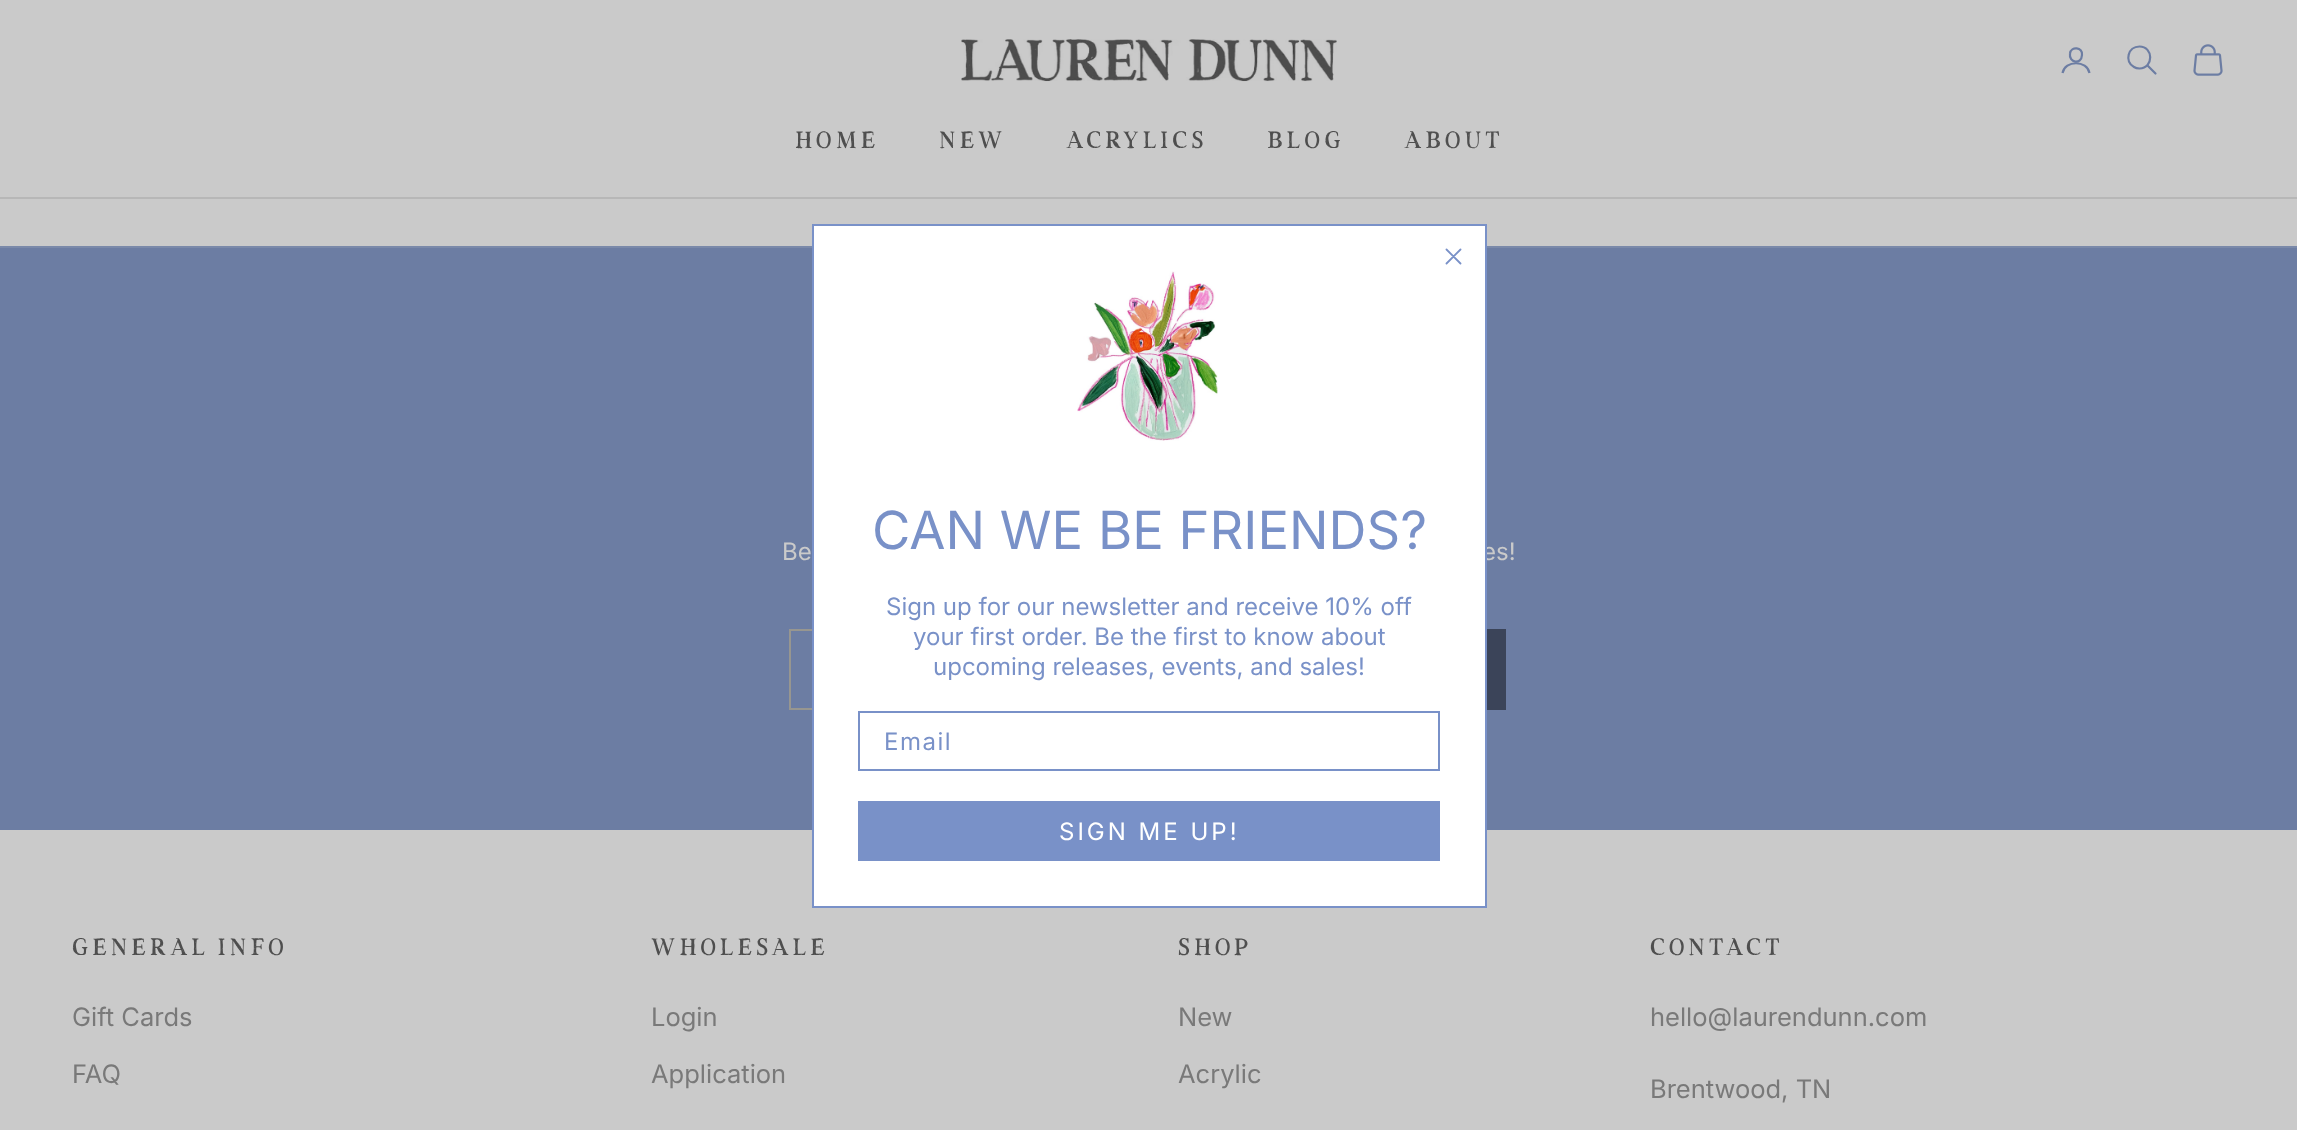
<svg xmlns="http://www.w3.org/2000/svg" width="2297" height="1130">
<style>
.a{font:23.5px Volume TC;letter-spacing:4.25px;fill:#4e4e4e}
.b{font:24px Inter;fill:#cacaca}
.c{font:24px Inter;letter-spacing:3px;fill:#fff}
.d{font:24px Inter;letter-spacing:1.5px;fill:#7991c8}
.e{font:24px Inter;fill:#7991c8}
.f{font:52.5px Inter;fill:#7991c8}
.g{font:25.5px Inter;fill:#797979}
</style>
<rect width="100%" height="100%" fill="#cacaca"/>
<path fill="#b7b7b7" d="M0 197h2297v2H0z"/>
<image href="1.png" x="961" y="39" width="376" height="43"/>
<path fill="none" stroke="#6c7da3" stroke-width="2.2" stroke-linecap="round" stroke-linejoin="round" d="M2082 55c-.5 10-13.5 8-12-1.5c1-7.5 13-6.5 12 1.5z"/>
<path fill="none" stroke="#6c7da3" stroke-width="2.2" d="M2062.5 73c2.5-13 24.5-13 27 0"/>
<path fill="none" stroke="#6c7da3" stroke-width="2.2" d="M2139.5 46.5c-11.5 0-15.5 15-5.5 20.5c1.5 1 3.5 1.5 5.5 1.5c14.5-.5 14-22 0-22z"/>
<path fill="none" stroke="#6c7da3" stroke-width="2.2" stroke-linecap="round" d="M2148 66l7.5 7.5"/>
<image href="2.png" x="2193" y="44" width="30" height="32"/>
<path fill="#6c7da3" d="M0 248h2297v582H0z"/>
<path fill="#7a89a9" d="M0 246h2297v2H0z"/>
<path fill="none" stroke="#979690" stroke-width="2" d="M790 630h519v79H790z"/>
<path fill="#3b4459" d="M1487 629h19v81H1487z"/>
<text class="a" x="795" y="148">HOME</text>
<text class="a" x="939" y="148">NEW</text>
<text class="a" x="1066" y="148">ACRYLICS</text>
<text class="a" x="1267" y="148">BLOG</text>
<text class="a" x="1404" y="148">ABOUT</text>
<text class="b" x="782" y="560">Be</text>
<text class="b" x="1482" y="560">es!</text>
<path fill="#fff" stroke="#7991c8" stroke-width="2" d="M813 225h673v682H813z"/>
<path fill="none" stroke="#7991c8" stroke-width="1.8" stroke-linecap="round" stroke-linejoin="round" d="M1446.5 249.5l14 14m-14 0l14-14z"/>
<path fill="#7991c8" d="M858 801h582v60H858z"/>
<text class="c" x="1059" y="840">SIGN ME UP!</text>
<path fill="none" stroke="#7991c8" stroke-width="2" d="M859 712h580v58H859z"/>
<text class="d" x="884" y="750">Email</text>
<text class="e" x="933" y="675">upcoming releases, events, and sales!</text>
<text class="e" x="913" y="645">your first order. Be the first to know about</text>
<text class="e" x="886" y="615">Sign up for our newsletter and receive 10% off</text>
<text class="f" x="872" y="549">CAN WE BE FRIENDS?</text>
<image href="3.png" x="1077" y="271" width="141" height="170"/>
<text class="a" x="72" y="955">GENERAL INFO</text>
<text class="g" x="72" y="1026">Gift Cards</text>
<text class="g" x="72" y="1083">FAQ</text>
<text class="a" x="651" y="955">WHOLESALE</text>
<text class="g" x="651" y="1026">Login</text>
<text class="g" x="651" y="1083">Application</text>
<text class="a" x="1178" y="955">SHOP</text>
<text class="g" x="1178" y="1026">New</text>
<text class="g" x="1178" y="1083">Acrylic</text>
<text class="a" x="1650" y="955">CONTACT</text>
<text class="g" x="1650" y="1026">hello@laurendunn.com</text>
<text class="g" x="1650" y="1098">Brentwood, TN</text>
</svg>
